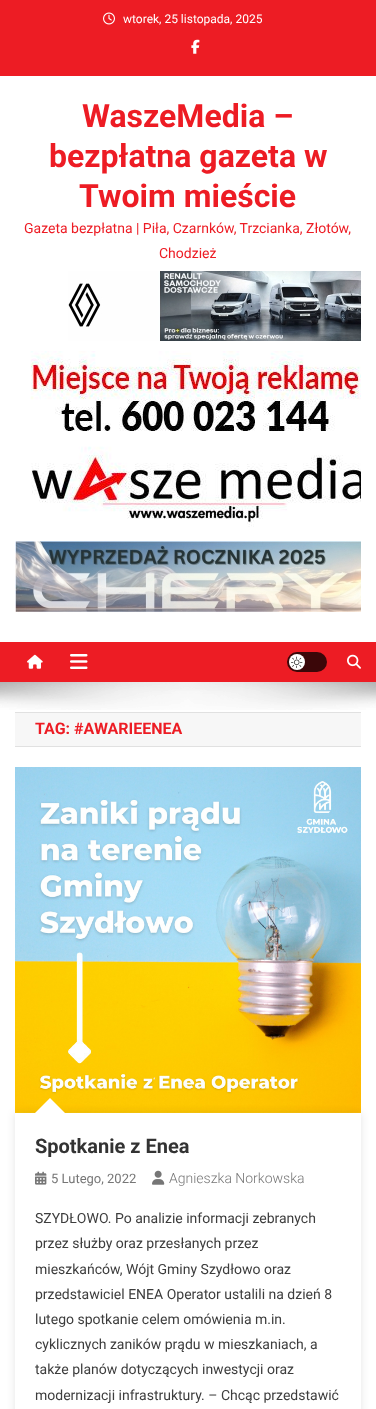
<svg xmlns="http://www.w3.org/2000/svg" width="376" height="1409">
<style>
.a{font:12px Roboto;fill:#fff}
.b{font:bold 32px Roboto;fill:#ed1c24}
.c{font:14px Roboto;fill:#ed1c24}
.d{font:bold 16px Roboto;fill:#ed1c24}
.e{font:bold 20px Roboto;fill:#333}
.f{font:13px Roboto;fill:#767676}
.g{font:300 14px Roboto;fill:#767676}
.h{font:14px Roboto;fill:#3d3d3d}
</style>
<defs>
<clipPath id="clip1"><path d="M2 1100h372v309h-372zm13 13h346v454h-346z" clip-rule="evenodd"/></clipPath>
</defs>
<rect width="100%" height="100%" fill="#fff"/>
<path fill="#ed1c24" d="M0 0h376v76H0z"/>
<image href="1.png" x="103" y="12" width="12" height="13"/>
<image href="2.png" x="191" y="39" width="9" height="15"/>
<image href="3.png" x="68" y="271" width="293" height="70"/>
<image href="4.png" x="30" y="351" width="331" height="176"/>
<image href="5.png" x="15" y="541" width="346" height="71"/>
<path fill="#ed1c24" d="M0 642h376v40H0z"/>
<image href="6.png" x="27" y="654" width="16" height="15"/>
<image href="7.png" x="70" y="654" width="18" height="15"/>
<rect fill="#3b0709" x="287" y="652" width="40" height="20" rx="10"/>
<circle fill="#fff" cx="297" cy="662" r="8"/>
<image href="8.png" x="291" y="656" width="12" height="12"/>
<image href="9.png" x="347" y="654" width="14" height="15"/>
<image href="10.png" x="0" y="682" width="376" height="28"/>
<path fill="#f7f7f7" d="M15 713h346v33H15z"/>
<path fill="#e1e1e1" d="M15 712h346v1H15z"/>
<path fill="#e1e1e1" d="M15 746h346v1H15z"/>
<image href="11.png" x="15" y="767" width="346" height="346"/>
<g clip-path="url(#clip1)">
<path fill="#0000001a" filter="blur(4px)" d="M15 1113h346v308H15z"/>
</g>
<path fill="#fff" d="M65 1113h-30l15-15z"/>
<image href="12.png" x="35" y="1171" width="12" height="14"/>
<image href="13.png" x="152" y="1170" width="13" height="15"/>
<text class="a" x="123" y="23">wtorek, 25 listopada, 2025</text>
<text class="b" x="82" y="127">WaszeMedia –</text>
<text class="b" x="49" y="167">bezpłatna gazeta w</text>
<text class="b" x="79" y="207">Twoim mieście</text>
<text class="c" x="24" y="233">Gazeta bezpłatna | Piła, Czarnków, Trzcianka, Złotów,</text>
<text class="c" x="159" y="258">Chodzież</text>
<text class="d" x="35" y="734">TAG: #AWARIEENEA</text>
<text class="e" x="35" y="1153">Spotkanie z Enea</text>
<text class="f" x="51" y="1183">5 Lutego, 2022</text>
<text class="g" x="169" y="1183">Agnieszka Norkowska</text>
<text class="h" x="35" y="1223">SZYDŁOWO. Po analizie informacji zebranych</text>
<text class="h" x="35" y="1248">przez służby oraz przesłanych przez</text>
<text class="h" x="35" y="1274">mieszkańców, Wójt Gminy Szydłowo oraz</text>
<text class="h" x="35" y="1299">przedstawiciel ENEA Operator ustalili na dzień 8</text>
<text class="h" x="35" y="1324">lutego spotkanie celem omówienia m.in.</text>
<text class="h" x="35" y="1349">cyklicznych zaników prądu w mieszkaniach, a</text>
<text class="h" x="35" y="1374">także planów dotyczących inwestycji oraz</text>
<text class="h" x="35" y="1400">modernizacji infrastruktury. – Chcąc przedstawić</text>
</svg>
